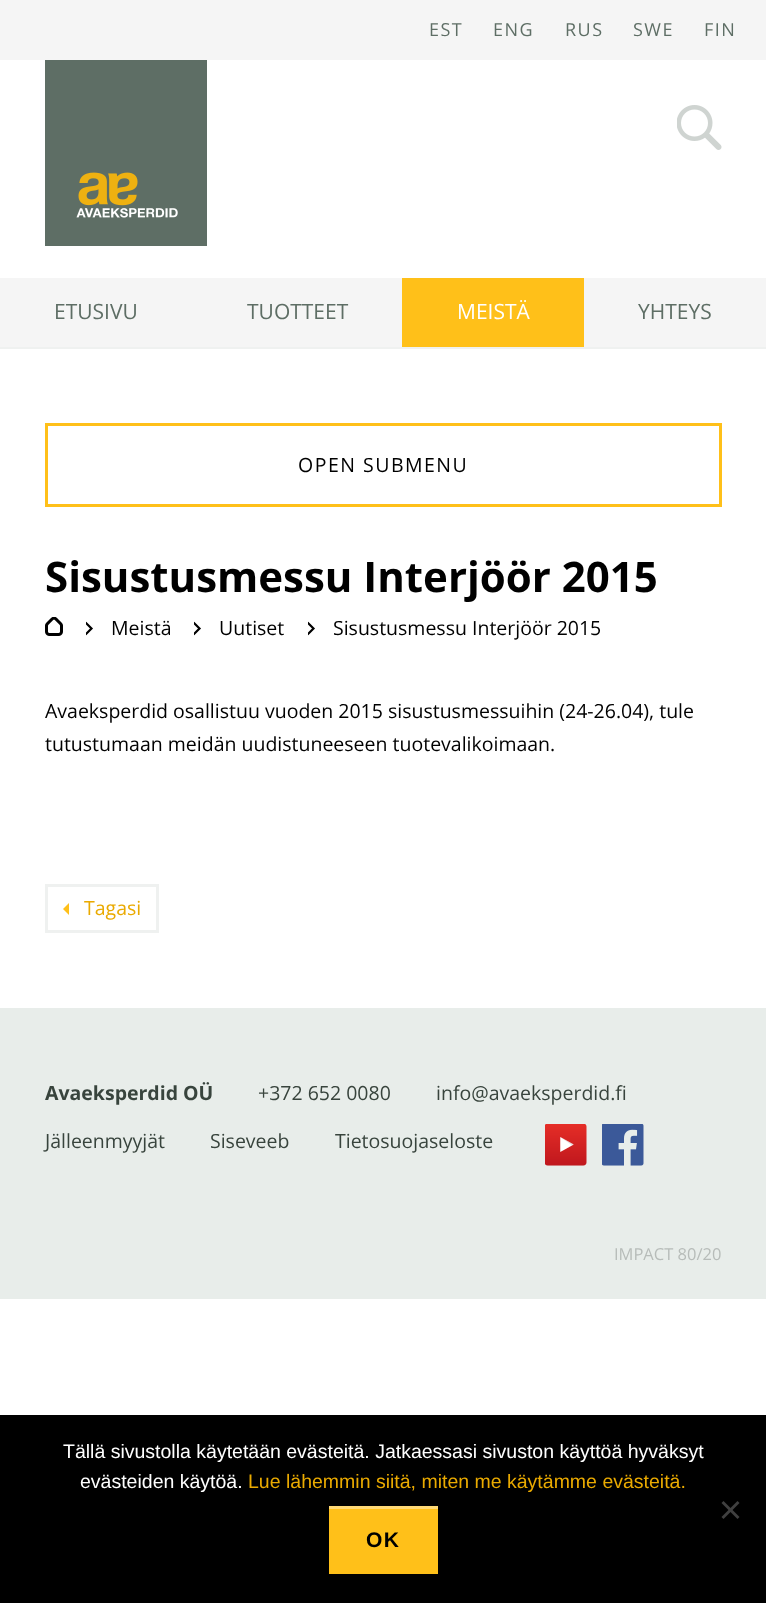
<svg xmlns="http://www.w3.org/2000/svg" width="766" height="1603">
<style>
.a{font:18px Open Sans;letter-spacing:1.5px;fill:#5e6e65}
.b{font:21px Open Sans;fill:#5e6e65}
.c{font:21px Open Sans;fill:#fff}
.d{font:19.5px Open Sans;letter-spacing:1.5px;fill:#000}
.e{font:bold 42px Open Sans;fill:#000}
.f{font:19.5px Open Sans;fill:#000}
.g{font:19.5px Open Sans;fill:#eaaa00}
.h{font:bold 19.5px Open Sans;fill:#38443d}
.i{font:19.5px Open Sans;fill:#38443d}
.j{font:16.5px Open Sans;fill:#b7bcb9}
.k{font:19.5px Liberation Sans;fill:#fff}
.l{font:19.5px Liberation Sans;fill:#eaaa00}
.m{font:bold 21px Liberation Sans;letter-spacing:1.5px;fill:#000}
</style>
<defs>
<clipPath id="clip1"><path d="M86 621h9v15H86z"/></clipPath>
<clipPath id="clip2"><path d="M194 621h9v15H194z"/></clipPath>
<clipPath id="clip3"><path d="M308 621h9v15H308z"/></clipPath>
</defs>
<rect width="100%" height="100%" fill="#fff"/>
<path fill="#f5f5f5" d="M0 0h766v60H0z"/>
<image href="1.png" x="45" y="60" width="162" height="186"/>
<image href="2.png" x="677" y="105" width="45" height="45"/>
<path fill="#f5f5f5" d="M0 278h766v69H0z"/>
<path fill="#ffc019" d="M402 278h182v69H402z"/>
<path fill="#eff1f0" d="M0 347h766v2H0z"/>
<path fill="none" stroke="#ffc019" stroke-width="3" d="M46.5 424.5h674v81H46.5z"/>
<image href="3.png" x="45" y="617" width="18" height="19"/>
<g clip-path="url(#clip1)">
<path fill="none" stroke="#000" stroke-width="2.2" d="M85.5 634.5l6-6l-6-6"/>
</g>
<g clip-path="url(#clip2)">
<path fill="none" stroke="#000" stroke-width="2.2" d="M193.5 634.5l6-6l-6-6"/>
</g>
<g clip-path="url(#clip3)">
<path fill="none" stroke="#000" stroke-width="2.2" d="M307.5 634.5l6-6l-6-6"/>
</g>
<path fill="none" stroke="#eff1f0" stroke-width="3" d="M46.5 885.5h111v46H46.5z"/>
<path fill="#ffc019" d="M69 903v12l-6-6z"/>
<path fill="#e8edea" d="M0 1008h766v291H0z"/>
<image href="4.png" x="545" y="1124" width="42" height="42"/>
<image href="5.png" x="602" y="1124" width="42" height="42"/>
<path fill="#000" d="M0 1415h766v188H0z"/>
<path fill="#404040" d="M737.5 1501l2 2l-16 16l-2-2z"/>
<path fill="#404040" d="M721.5 1503l2-2l16 16l-2 2z"/>
<path fill="#ffc019" d="M329 1509h109v65H329z"/>
<path fill="#ffd975" d="M329 1506h109v3H329z"/>
<text class="a" x="429" y="36">EST</text>
<text class="a" x="493" y="36">ENG</text>
<text class="a" x="565" y="36">RUS</text>
<text class="a" x="633" y="36">SWE</text>
<text class="a" x="704" y="36">FIN</text>
<text class="b" x="54" y="319">ETUSIVU</text>
<text class="b" x="247" y="319">TUOTTEET</text>
<text class="c" x="457" y="319">MEISTÄ</text>
<text class="b" x="638" y="319">YHTEYS</text>
<text class="d" x="298" y="472">OPEN SUBMENU</text>
<text class="e" x="45" y="592">Sisustusmessu Interjöör 2015</text>
<text class="f" x="111" y="635">Meistä</text>
<text class="f" x="219" y="635">Uutiset</text>
<text class="f" x="333" y="635">Sisustusmessu Interjöör 2015</text>
<text class="f" x="45" y="718">Avaeksperdid osallistuu vuoden 2015 sisustusmessuihin (24-26.04), tule</text>
<text class="f" x="45" y="751">tutustumaan meidän uudistuneeseen tuotevalikoimaan.</text>
<text class="g" x="84" y="915">Tagasi</text>
<text class="h" x="45" y="1100">Avaeksperdid OÜ</text>
<text class="i" x="258" y="1100">+372 652 0080</text>
<text class="i" x="436" y="1100">info@avaeksperdid.fi</text>
<text class="i" x="45" y="1148">Jälleenmyyjät</text>
<text class="i" x="210" y="1148">Siseveeb</text>
<text class="i" x="335" y="1148">Tietosuojaseloste</text>
<text class="j" x="614" y="1260">IMPACT 80/20</text>
<text class="k" x="63" y="1458">Tällä sivustolla käytetään evästeitä. Jatkaessasi sivuston käyttöä hyväksyt</text>
<text class="k" x="80" y="1488">evästeiden käytöä.</text>
<text class="l" x="248" y="1488">Lue lähemmin siitä, miten me käytämme evästeitä.</text>
<text class="m" x="366" y="1547">OK</text>
</svg>
